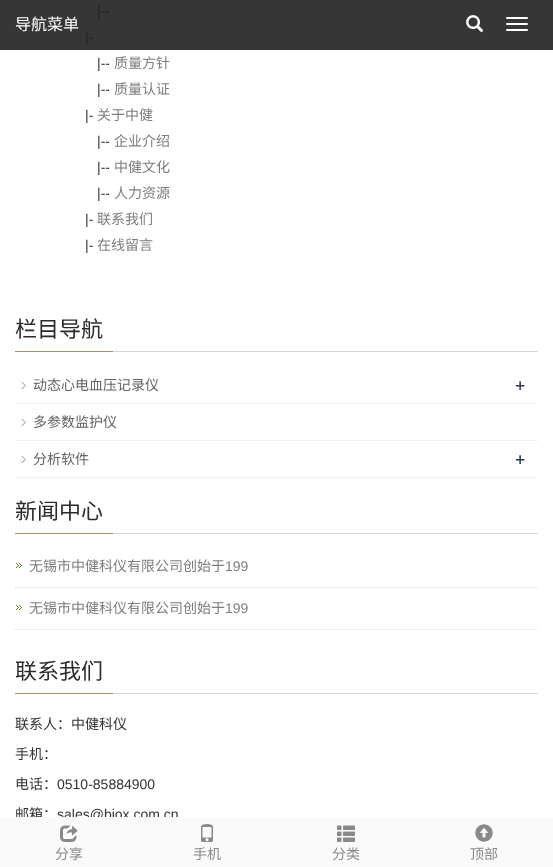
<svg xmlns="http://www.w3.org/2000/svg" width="553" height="867">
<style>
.a{font:14px Liberation Sans;fill:#222}
.b{font:14px Liberation Sans;fill:#333}
.c{font:14px Noto Sans CJK SC;fill:#7d7d7d}
.d{font:22px Noto Sans CJK SC;fill:#2c2b2b}
.e{font:14px Noto Sans CJK SC;fill:#656464}
.f{font:600 18px Open Sans;fill:#303c4b}
.g{font:14px Liberation Sans;fill:#7d7d7d}
.h{font:14px Noto Sans CJK SC;fill:#333}
.i{font:16px Noto Sans CJK SC;fill:#fff}
.j{font:14px Noto Sans CJK SC;fill:#898989}
</style>
<rect width="100%" height="100%" fill="#fff"/>
<path fill="#363636" d="M0 0h553v50H0z"/>
<image href="1.png" x="15" y="351" width="523" height="1"/>
<image href="2.png" x="21" y="382" width="5" height="7"/>
<path fill="#f2f2f2" d="M15 403h523v1H15z"/>
<image href="2.png" x="21" y="419" width="5" height="7"/>
<path fill="#f2f2f2" d="M15 440h523v1H15z"/>
<image href="2.png" x="21" y="456" width="5" height="7"/>
<path fill="#f2f2f2" d="M15 477h523v1H15z"/>
<image href="1.png" x="15" y="533" width="523" height="1"/>
<image href="3.png" x="16" y="563" width="6" height="5"/>
<path fill="none" stroke="#ddd" stroke-dasharray="1 1" d="M15 587.5h523"/>
<image href="3.png" x="16" y="605" width="6" height="5"/>
<path fill="none" stroke="#ddd" stroke-dasharray="1 1" d="M15 629.5h523"/>
<image href="1.png" x="15" y="693" width="523" height="1"/>
<image href="4.png" x="466" y="15" width="18" height="18"/>
<rect fill="#fff" x="506" y="17" width="22" height="2" rx="1"/>
<rect fill="#fff" x="506" y="23" width="22" height="2" rx="1"/>
<rect fill="#fff" x="506" y="29" width="22" height="2" rx="1"/>
<text class="a" x="97" y="16">|--</text>
<text class="a" x="85" y="42">|-</text>
<text class="b" x="97" y="68">|--</text>
<text class="c" x="114" y="68">质量方针</text>
<text class="b" x="97" y="94">|--</text>
<text class="c" x="114" y="94">质量认证</text>
<text class="b" x="85" y="120">|-</text>
<text class="c" x="97" y="120">关于中健</text>
<text class="b" x="97" y="146">|--</text>
<text class="c" x="114" y="146">企业介绍</text>
<text class="b" x="97" y="172">|--</text>
<text class="c" x="114" y="172">中健文化</text>
<text class="b" x="97" y="198">|--</text>
<text class="c" x="114" y="198">人力资源</text>
<text class="b" x="85" y="224">|-</text>
<text class="c" x="97" y="224">联系我们</text>
<text class="b" x="85" y="250">|-</text>
<text class="c" x="97" y="250">在线留言</text>
<text class="d" x="15" y="337">栏目导航</text>
<text class="e" x="33" y="390">动态心电血压记录仪</text>
<text class="f" x="515" y="392">+</text>
<text class="e" x="33" y="427">多参数监护仪</text>
<text class="e" x="33" y="464">分析软件</text>
<text class="f" x="515" y="466">+</text>
<text class="d" x="15" y="519">新闻中心</text>
<text class="c" x="29" y="571">无锡市中健科仪有限公司创始于</text>
<text class="g" x="225" y="571">199</text>
<text class="c" x="29" y="613">无锡市中健科仪有限公司创始于</text>
<text class="g" x="225" y="613">199</text>
<text class="d" x="15" y="679">联系我们</text>
<text class="h" x="15" y="729">联系人：中健科仪</text>
<text class="h" x="15" y="759">手机：</text>
<text class="h" x="15" y="789">电话：</text>
<text class="b" x="57" y="789">0510-85884900</text>
<text class="h" x="15" y="819">邮箱：</text>
<text class="b" x="57" y="819">sales@biox.com.cn</text>
<text class="i" x="15" y="30">导航菜单</text>
<path fill="#fafafa" d="M0 817h553v50H0z"/>
<image href="5.png" x="60" y="825" width="18" height="17"/>
<text class="j" x="55" y="859">分享</text>
<image href="6.png" x="201" y="824" width="12" height="18"/>
<text class="j" x="193" y="859">手机</text>
<image href="7.png" x="337" y="825" width="18" height="17"/>
<text class="j" x="332" y="859">分类</text>
<image href="8.png" x="475" y="824" width="18" height="18"/>
<text class="j" x="470" y="859">顶部</text>
</svg>
